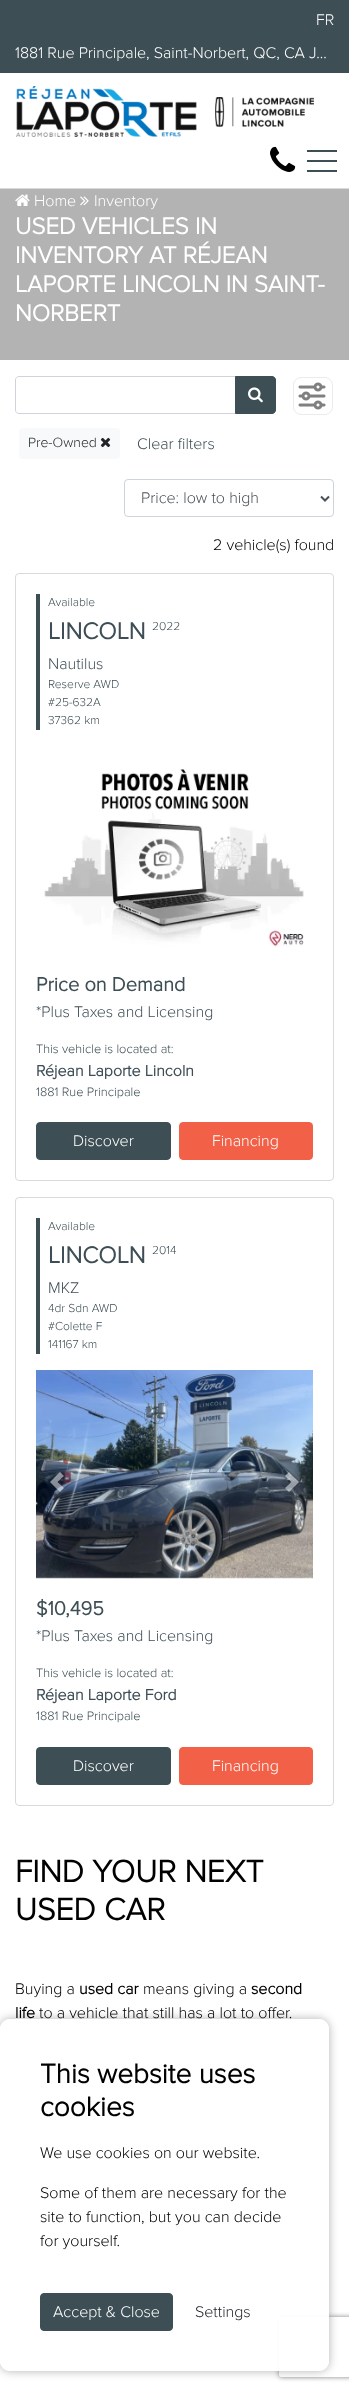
<svg xmlns="http://www.w3.org/2000/svg" width="349" height="2391">
<style>
.a{font:300 16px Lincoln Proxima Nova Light;fill:#fff}
.b{font:bold 24px Lincoln Proxima Nova Light;fill:#fff}
.c{font:300 14px Lincoln Proxima Nova Light;fill:#212529}
.d{font:300 16px Lincoln Proxima Nova Light;fill:#3e4e55}
.e{font:300 16px Lincoln Proxima Nova Light;fill:#495057}
.f{font:300 16px Lincoln Proxima Nova Light;fill:#000}
.g{font:300 12px Lincoln Proxima Nova Light;fill:#3e4e55}
.h{font:bold 24px Lincoln Proxima Nova Light;fill:#3e4e55}
.i{font:bold 20px Lincoln Proxima Nova Light;fill:#3e4e55}
.j{font:300 12.75px Lincoln Proxima Nova Light;fill:#3e4e55}
.k{font:bold 16px Lincoln Proxima Nova Light;fill:#3e4e55}
.l{font:bold 32px Lincoln Proxima Nova Light;fill:#000}
.m{font:bold 16px Lincoln Proxima Nova Light;fill:#000}
.n{font:bold 28px Lincoln Proxima Nova Light;fill:#000}
.o{font:300 16px Lincoln Proxima Nova Light;fill:#212529}
</style>
<defs>
<clipPath id="clip1"><path d="M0 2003h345v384h-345zm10 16h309c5.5 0 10 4.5 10 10v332c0 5.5-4.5 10-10 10h-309c-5.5 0-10-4.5-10-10v-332c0-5.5 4.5-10 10-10z" clip-rule="evenodd"/></clipPath>
<clipPath id="clip2"><path d="M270 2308h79v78h-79zm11 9h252c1 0 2 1 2 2v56c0 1-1 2-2 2h-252c-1 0-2-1-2-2v-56c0-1 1-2 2-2z" clip-rule="evenodd"/></clipPath>
</defs>
<rect width="100%" height="100%" fill="#fff"/>
<path fill="#3e4e55" d="M0 0h349v73H0z"/>
<path fill="#dadada" d="M0 188h349v1H0z"/>
<image href="1.png" x="16" y="86" width="298" height="51"/>
<image href="2.png" x="270" y="146" width="26" height="26"/>
<path fill="#3e4e55" d="M307 150h30v2H307z"/>
<path fill="#3e4e55" d="M307 160h30v2H307z"/>
<path fill="#3e4e55" d="M307 170h30v2H307z"/>
<path fill="#b3b3b3" d="M0 189h349v171H0z"/>
<image href="3.png" x="15" y="194" width="15" height="12"/>
<image href="4.png" x="80" y="196" width="9" height="10"/>
<path fill="none" stroke="#ced4da" d="M19 376.5h216.5v37h-216.5c-2 0-3.5-1.5-3.5-3.5v-30c0-2 1.5-3.5 3.5-3.5z"/>
<path fill="#3e4e55" stroke="#3e4e55" d="M235.5 376.5h36.5c2 0 3.5 1.5 3.5 3.5v30c0 2-1.5 3.5-3.5 3.5h-36.5z"/>
<image href="5.png" x="248" y="387" width="15" height="16"/>
<image href="6.png" x="298" y="382" width="28" height="28"/>
<rect fill="none" stroke="#ebebeb" x="293.5" y="377.5" width="39" height="37" rx="7.5"/>
<rect fill="#f8f9fa" x="19" y="428" width="101" height="31" rx="4"/>
<image href="7.png" x="100" y="437" width="11" height="11"/>
<rect fill="none" stroke="#ced4da" x="124.5" y="479.5" width="209" height="37" rx="3.5"/>
<path fill="none" stroke="#495057" stroke-width="2" d="M321 496.5l4 4l4-4"/>
<rect fill="none" stroke="#dadada" x="15.5" y="573.5" width="318" height="607" rx="3.5"/>
<path fill="#3e4e55" d="M36 594h4v136H36z"/>
<image href="8.png" x="44" y="769" width="260" height="178"/>
<rect fill="#3e4e55" stroke="#3e4e55" x="36.5" y="1122.5" width="134" height="37" rx="3.5"/>
<rect fill="#f26147" stroke="#f26147" x="179.5" y="1122.5" width="133" height="37" rx="3.5"/>
<rect fill="none" stroke="#dadada" x="15.5" y="1197.5" width="318" height="608" rx="3.5"/>
<path fill="#3e4e55" d="M36 1218h4v136H36z"/>
<image href="9.png" x="36" y="1370" width="277" height="209"/>
<path fill="#ffffff80" d="M60 1472l-10 10l10 10l4-4l-6.5-6l6.5-6z"/>
<path fill="#ffffff80" d="M289 1472l-4 4l6.5 6l-6.5 6l4 4l10-10z"/>
<rect fill="#3e4e55" stroke="#3e4e55" x="36.5" y="1747.5" width="134" height="37" rx="3.5"/>
<rect fill="#f26147" stroke="#f26147" x="179.5" y="1747.5" width="133" height="37" rx="3.5"/>
<g clip-path="url(#clip1)">
<rect fill="#0000004d" filter="blur(5px)" y="2019" width="329" height="352" rx="10"/>
</g>
<g clip-path="url(#clip2)">
<rect fill="#808080" filter="blur(2.5px)" x="279" y="2317" width="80" height="60" rx="2"/>
</g>
<rect fill="#fffffff2" y="2019" width="329" height="352" rx="10"/>
<rect fill="#3e4e55" stroke="#3e4e55" x="40.5" y="2293.5" width="132" height="37" rx="3.5"/>
<text class="a" x="316" y="25">FR</text>
<text class="a" x="15" y="58">1881 Rue Principale, Saint-Norbert, QC, CA J…</text>
<text class="a" x="34" y="206">Home</text>
<text class="a" x="94" y="206">Inventory</text>
<text class="b" x="15" y="234">USED VEHICLES IN</text>
<text class="b" x="15" y="263">INVENTORY AT RÉJEAN</text>
<text class="b" x="15" y="292">LAPORTE LINCOLN IN SAINT-</text>
<text class="b" x="15" y="321">NORBERT</text>
<text class="c" x="28" y="447">Pre-Owned</text>
<text class="d" x="137" y="449">Clear filters</text>
<text class="e" x="141" y="503">Price: low to high</text>
<text class="f" x="213" y="550">2 vehicle(s) found</text>
<text class="g" x="48" y="606">Available</text>
<text class="h" x="48" y="639">LINCOLN</text>
<text class="g" x="152" y="630">2022</text>
<text class="d" x="48" y="669">Nautilus</text>
<text class="g" x="48" y="688">Reserve AWD</text>
<text class="g" x="48" y="706">#25-632A</text>
<text class="g" x="48" y="724">37362 km</text>
<text class="i" x="36" y="991">Price on Demand</text>
<text class="d" x="36" y="1017">*Plus Taxes and Licensing</text>
<text class="j" x="36" y="1053">This vehicle is located at:</text>
<text class="k" x="36" y="1076">Réjean Laporte Lincoln</text>
<text class="j" x="36" y="1096">1881 Rue Principale</text>
<text class="a" x="73" y="1146">Discover</text>
<text class="a" x="212" y="1146">Financing</text>
<text class="g" x="48" y="1230">Available</text>
<text class="h" x="48" y="1263">LINCOLN</text>
<text class="g" x="152" y="1254">2014</text>
<text class="d" x="48" y="1293">MKZ</text>
<text class="g" x="48" y="1312">4dr Sdn AWD</text>
<text class="g" x="48" y="1330">#Colette F</text>
<text class="g" x="48" y="1348">141167 km</text>
<text class="i" x="36" y="1615">$10,495</text>
<text class="d" x="36" y="1641">*Plus Taxes and Licensing</text>
<text class="j" x="36" y="1677">This vehicle is located at:</text>
<text class="k" x="36" y="1700">Réjean Laporte Ford</text>
<text class="j" x="36" y="1720">1881 Rue Principale</text>
<text class="a" x="73" y="1771">Discover</text>
<text class="a" x="212" y="1771">Financing</text>
<text class="l" x="15" y="1882">FIND YOUR NEXT</text>
<text class="l" x="15" y="1920">USED CAR</text>
<text class="f" x="15" y="1994">Buying a</text>
<text class="m" x="79" y="1994">used car</text>
<text class="f" x="143" y="1994">means giving a</text>
<text class="m" x="251" y="1994">second</text>
<text class="m" x="15" y="2018">life</text>
<text class="f" x="39" y="2018">to a vehicle that still has a lot to offer.</text>
<text class="n" x="40" y="2083">This website uses</text>
<text class="n" x="40" y="2116">cookies</text>
<text class="f" x="40" y="2158">We use cookies on our website.</text>
<text class="f" x="40" y="2198">Some of them are necessary for the</text>
<text class="f" x="40" y="2222">site to function, but you can decide</text>
<text class="f" x="40" y="2246">for yourself.</text>
<text class="a" x="53" y="2317">Accept &amp; Close</text>
<text class="o" x="195" y="2317">Settings</text>
</svg>
